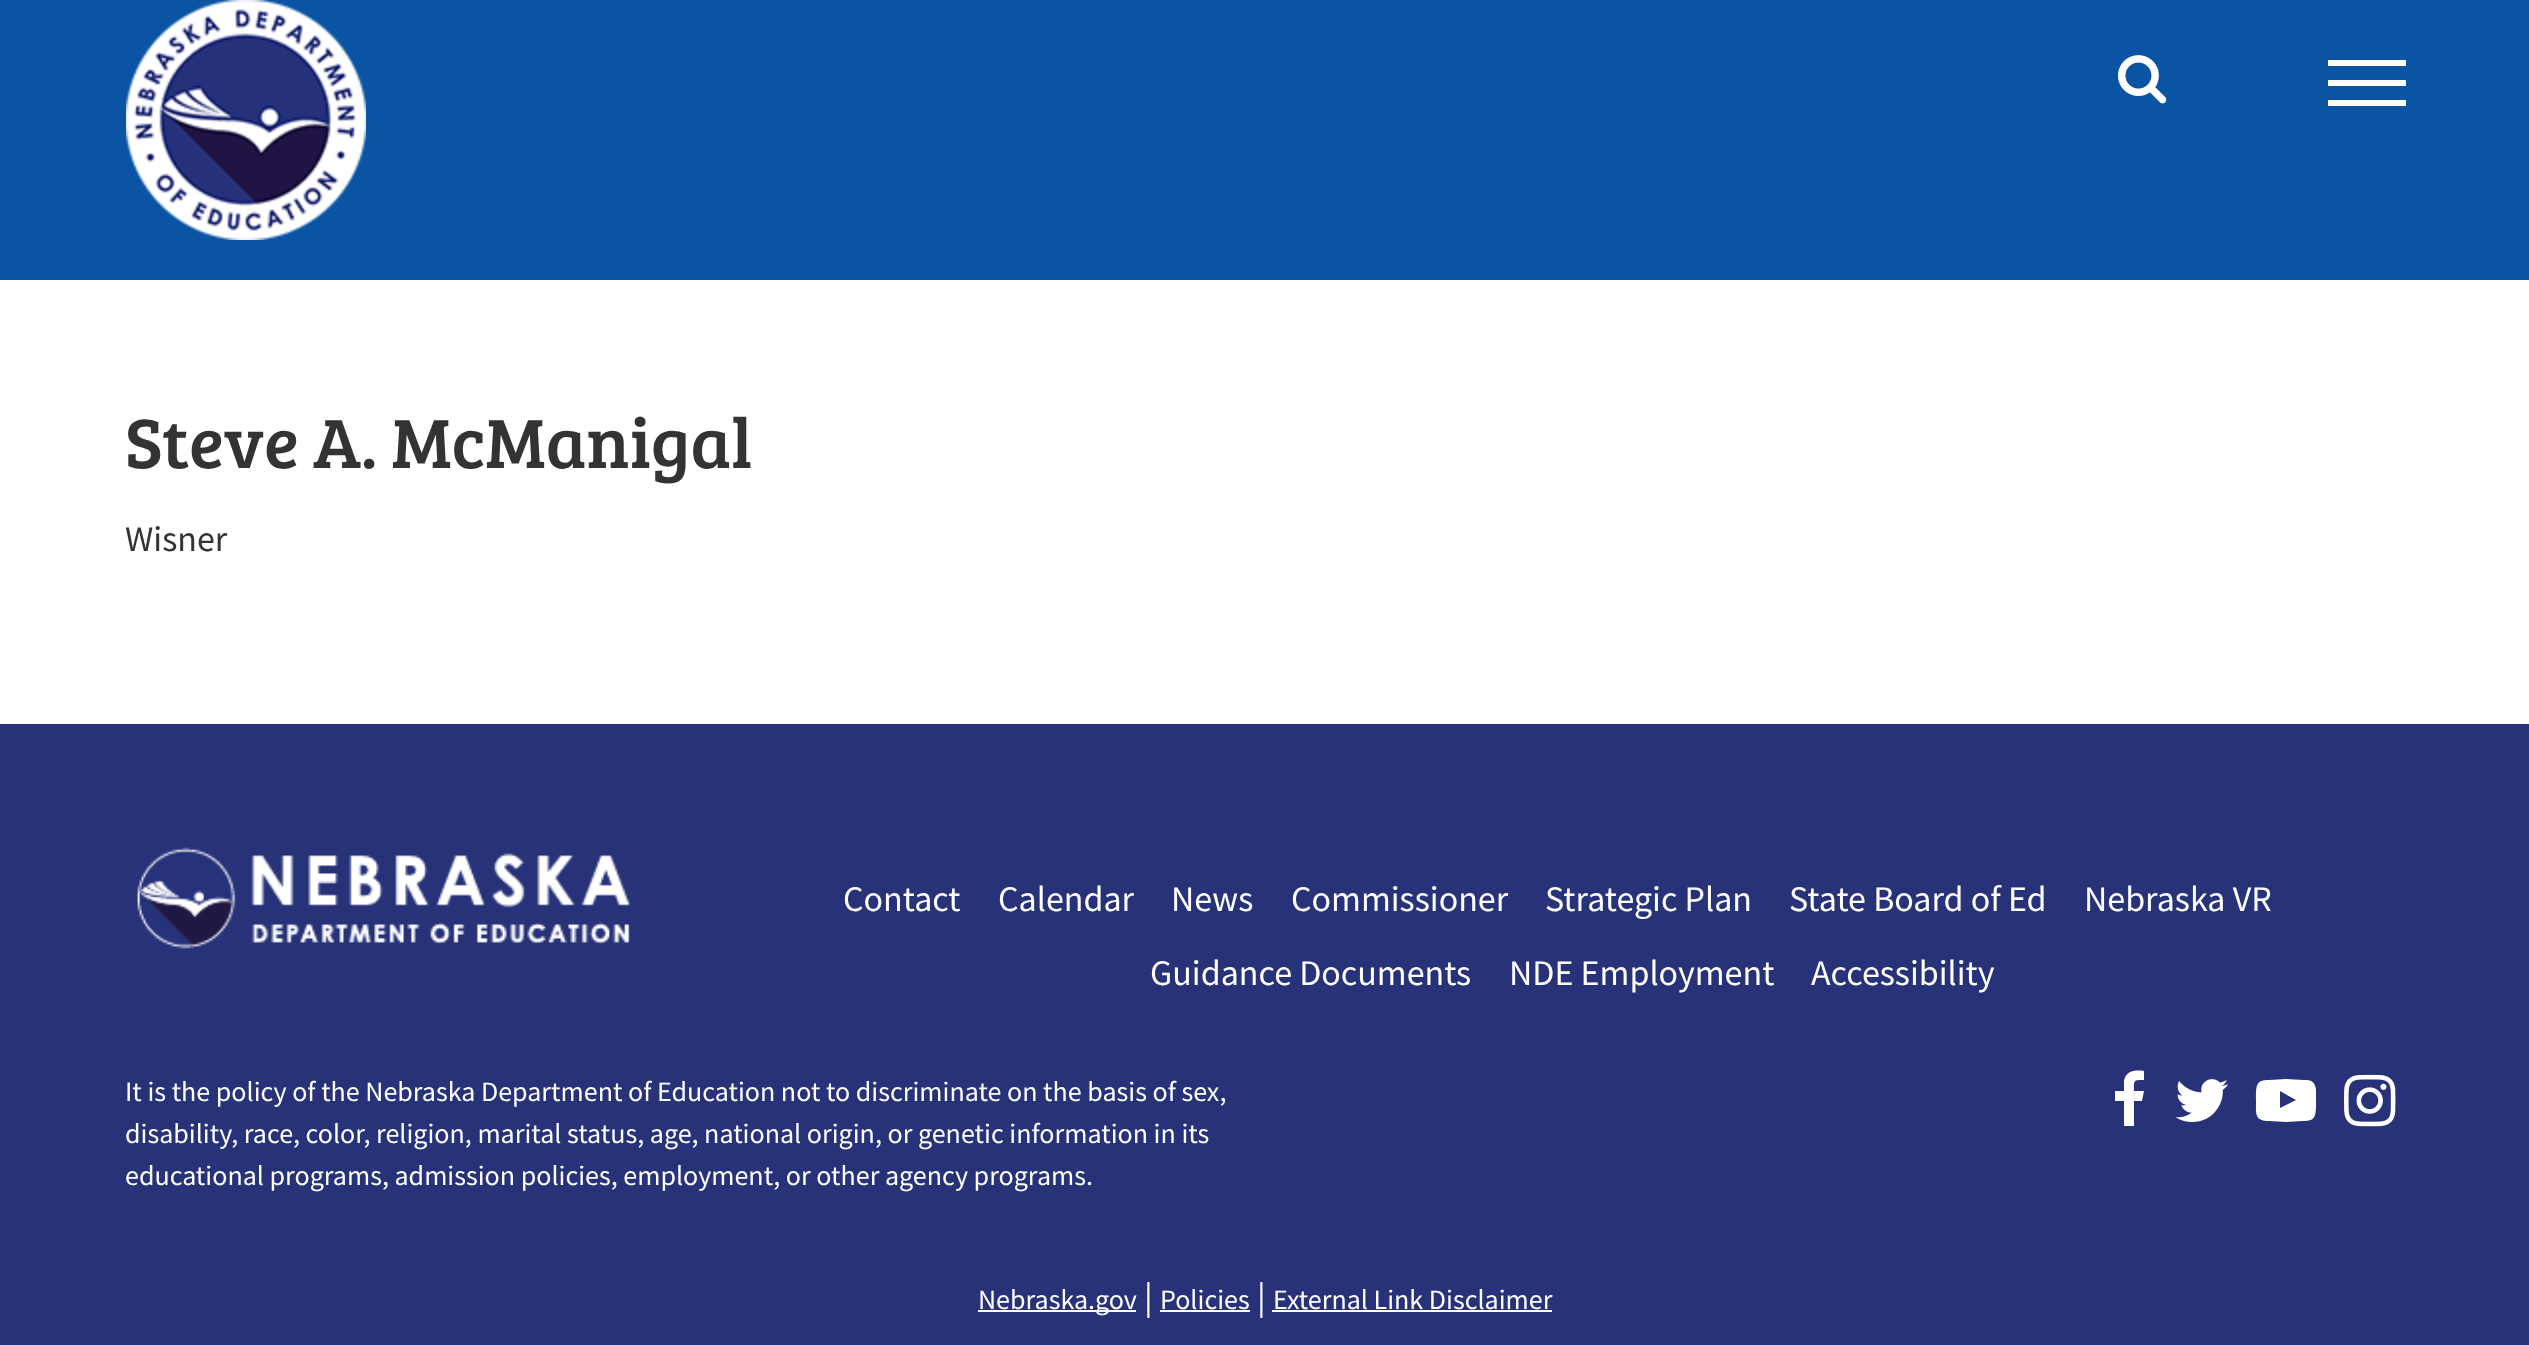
<svg xmlns="http://www.w3.org/2000/svg" width="2529" height="1345">
<style>
.a{font:72px Bree Serif;fill:#333}
.b{font:36px Source Sans Pro;fill:#333}
.c{font:36px Source Sans Pro;fill:#fff}
.d{font:28px Source Sans Pro;fill:#fff}
</style>
<rect width="100%" height="100%" fill="#fff"/>
<path fill="#0a54a3" d="M0 0h2529v280H0z"/>
<image href="1.png" x="126" y="0" width="240" height="240"/>
<image href="2.png" x="2118" y="55" width="49" height="49"/>
<path fill="#fff" d="M2328 60h78v6H2328z"/>
<path fill="#fff" d="M2328 80h78v6H2328z"/>
<path fill="#fff" d="M2328 100h78v6H2328z"/>
<path fill="#273278" d="M0 724h2529v621H0z"/>
<image href="3.png" x="137" y="847" width="494" height="102"/>
<path fill="#fff" d="M2144 1071v9c-11 0-10 0-10 11h10l-2 10h-8v25h-10v-25h-9v-10h9v-10c2-11 12-11 20-10z"/>
<image href="4.png" x="2175" y="1079" width="54" height="43"/>
<path fill="#fff" d="M2280 1108l16-8l-16-9zm6-29l18 1c7 0 11 1 12 10v11c0 15 0 20-13 20l-17 1l-17-1c-15 0-13-8-13-21c0-15 0-20 13-20z"/>
<image href="5.png" x="2344" y="1074" width="52" height="53"/>
<path fill="#fff" d="M978 1310h158v2H978z"/>
<path fill="#fff" d="M1160 1310h90v2H1160z"/>
<path fill="#fff" d="M1272 1310h280v2H1272z"/>
<text class="a" x="125" y="468">Steve A. McManigal</text>
<text class="b" x="125" y="551">Wisner</text>
<text class="c" x="843" y="911">Contact</text>
<text class="c" x="998" y="911">Calendar</text>
<text class="c" x="1171" y="911">News</text>
<text class="c" x="1291" y="911">Commissioner</text>
<text class="c" x="1545" y="911">Strategic Plan</text>
<text class="c" x="1789" y="911">State Board of Ed</text>
<text class="c" x="2084" y="911">Nebraska VR</text>
<text class="c" x="1150" y="985">Guidance Documents</text>
<text class="c" x="1509" y="985">NDE Employment</text>
<text class="c" x="1811" y="985">Accessibility</text>
<text class="d" x="125" y="1101">It is the policy of the Nebraska Department of Education not to discriminate on the basis of sex,</text>
<text class="d" x="125" y="1143">disability, race, color, religion, marital status, age, national origin, or genetic information in its</text>
<text class="d" x="125" y="1185">educational programs, admission policies, employment, or other agency programs.</text>
<text class="d" x="978" y="1309">Nebraska.gov</text>
<text class="c" x="1144" y="1309">|</text>
<text class="d" x="1160" y="1309">Policies</text>
<text class="c" x="1257" y="1309">|</text>
<text class="d" x="1273" y="1309">External Link Disclaimer</text>
</svg>
